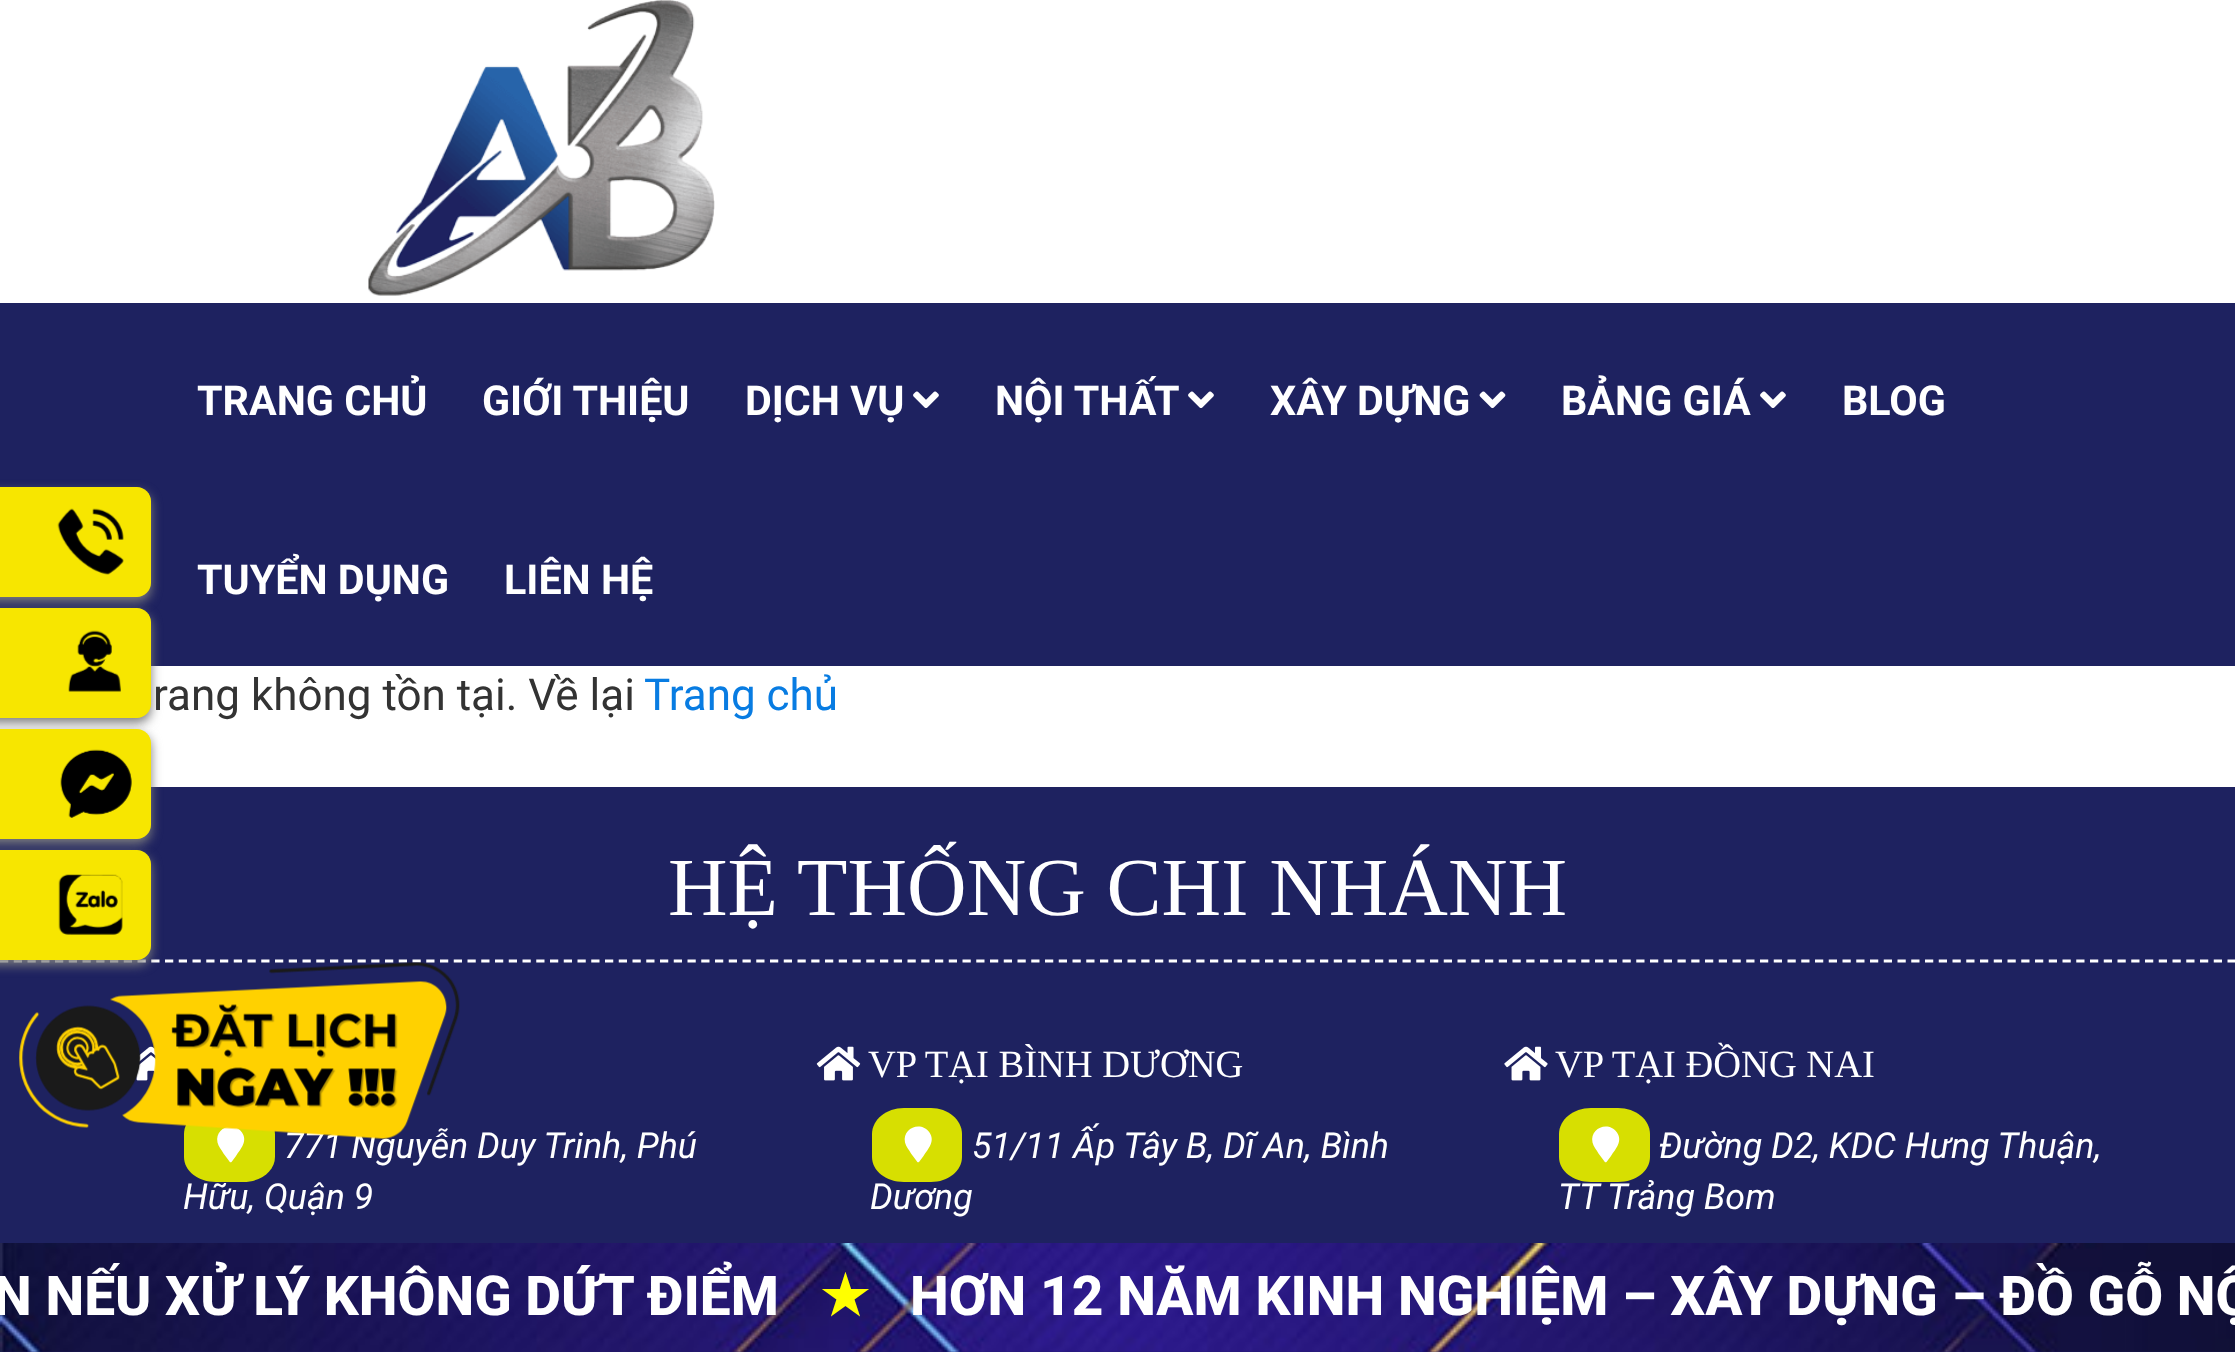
<svg xmlns="http://www.w3.org/2000/svg" width="2235" height="1352">
<style>
.a{font:bold 41.25px Roboto;fill:#fff}
.b{font:44px Roboto;fill:#333}
.c{font:44px Roboto;fill:#087ce2}
.d{font:82.5px Liberation Serif;fill:#fff}
.e{font:italic 35.75px Roboto;fill:#fff}
.f{font:38.5px Liberation Serif;fill:#fff}
.g{font:800 55px Roboto;fill:#fff}
.h{font:bold 55px DejaVu Sans;fill:#ff0}
</style>
<rect width="100%" height="100%" fill="#fff"/>
<image href="1.png" x="368" y="0" width="347" height="296"/>
<path fill="#1e2260" d="M0 303h2235v363H0z"/>
<image href="2.png" x="913" y="391" width="26" height="17"/>
<image href="2.png" x="1188" y="391" width="26" height="17"/>
<image href="3.png" x="1479" y="391" width="27" height="18"/>
<image href="2.png" x="1760" y="391" width="26" height="17"/>
<path fill="#1e2260" d="M0 787h2235v565H0z"/>
<path fill="none" stroke="#fff" stroke-width="2.8" stroke-dasharray="8.25 5.5" d="M0 961h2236"/>
<image href="4.png" x="136" y="1046" width="20" height="35"/>
<path fill="#d7df01" d="M216 1108h27c18 0 32 12 32 26v23c0 14-14 25-32 25h-27c-18 0-32-11-32-25v-23c0-14 14-26 32-26z"/>
<path fill="#fff" d="M229.5 1161.5l-6-8c-2-3.5-5-7-6-11c-3-14.5 16-22 24.5-10c6 9-1.5 16.5-6 23.5l-4.5 6c-1 .5-2 0-2-.5z"/>
<image href="5.png" x="816" y="1046" width="45" height="35"/>
<path fill="#d7df01" d="M904 1108h27c17 0 31 12 31 26v23c0 14-14 25-31 25h-27c-18 0-32-11-32-25v-23c0-14 14-26 32-26z"/>
<path fill="#fff" d="M917 1161.5l-6-8c-2-3.5-5-7-6-11c-3-14.5 16-22 24.5-10c6 9-1.5 16.5-6 23.5l-4.5 6c-1 .5-2 0-2-.5z"/>
<image href="6.png" x="1504" y="1046" width="44" height="35"/>
<path fill="#d7df01" d="M1591 1108h27c18 0 32 12 32 26v23c0 14-14 25-32 25h-27c-18 0-32-11-32-25v-23c0-14 14-26 32-26z"/>
<path fill="#fff" d="M1604.5 1161.5l-6-8c-2-3.5-5-7-6-11c-3-14.5 16-22 24.5-10c6 9-1.5 16.5-6 23.5l-4.5 6c-1 .5-2 0-2-.5z"/>
<rect fill="#7d7d7d" filter="blur(5.5px)" x="-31" y="492" width="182" height="110" rx="14"/>
<path fill="#f7e600" d="M-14 487h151c7.5 0 14 6.5 14 14v82c0 7.5-6.5 14-14 14h-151z"/>
<image href="8.png" x="57" y="508" width="67" height="67"/>
<rect fill="#7d7d7d" filter="blur(5.5px)" x="-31" y="613" width="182" height="110" rx="14"/>
<path fill="#f7e600" d="M-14 608h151c7.5 0 14 6.5 14 14v82c0 7.5-6.5 14-14 14h-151z"/>
<image href="9.png" x="68" y="630" width="53" height="62"/>
<rect fill="#7d7d7d" filter="blur(5.5px)" x="-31" y="734" width="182" height="110" rx="14"/>
<path fill="#f7e600" d="M-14 729h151c7.5 0 14 6.5 14 14v82c0 7.5-6.5 14-14 14h-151z"/>
<image href="10.png" x="60" y="749" width="72" height="69"/>
<image href="12.png" x="0" y="1243" width="2235" height="109"/>
<text class="a" x="197" y="415">TRANG CHỦ</text>
<text class="a" x="482" y="415">GIỚI THIỆU</text>
<text class="a" x="745" y="415">DỊCH VỤ</text>
<text class="a" x="995" y="415">NỘI THẤT</text>
<text class="a" x="1270" y="415">XÂY DỰNG</text>
<text class="a" x="1561" y="415">BẢNG GIÁ</text>
<text class="a" x="1842" y="415">BLOG</text>
<text class="a" x="197" y="594">TUYỂN DỤNG</text>
<text class="a" x="504" y="594">LIÊN HỆ</text>
<text class="b" x="153" y="710">rang không tồn tại. Về lại</text>
<text class="c" x="644" y="710">Trang chủ</text>
<text class="d" x="668" y="915">HỆ THỐNG CHI NHÁNH</text>
<text class="e" x="284" y="1158">771 Nguyễn Duy Trinh, Phú</text>
<text class="e" x="183" y="1209">Hữu, Quận 9</text>
<text class="f" x="868" y="1077">VP TẠI BÌNH DƯƠNG</text>
<text class="e" x="972" y="1158">51/11 Ấp Tây B, Dĩ An, Bình</text>
<text class="e" x="870" y="1209">Dương</text>
<text class="f" x="1555" y="1077">VP TẠI ĐỒNG NAI</text>
<text class="e" x="1659" y="1158">Đường D2, KDC Hưng Thuận,</text>
<text class="e" x="1558" y="1209">TT Trảng Bom</text>
<image href="7.png" x="19" y="962" width="441" height="177"/>
<rect fill="#7d7d7d" filter="blur(5.5px)" x="-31" y="855" width="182" height="110" rx="14"/>
<path fill="#f7e600" d="M-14 850h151c7.5 0 14 6.5 14 14v82c0 7.5-6.5 14-14 14h-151z"/>
<image href="11.png" x="58" y="874" width="65" height="61"/>
<text class="g" x="-7" y="1315">N NẾU XỬ LÝ KHÔNG DỨT ĐIỂM</text>
<text class="h" x="820" y="1315">★</text>
<text class="g" x="910" y="1315">HƠN 12 NĂM KINH NGHIỆM – XÂY DỰNG – ĐỒ GỖ NỘ</text>
</svg>
